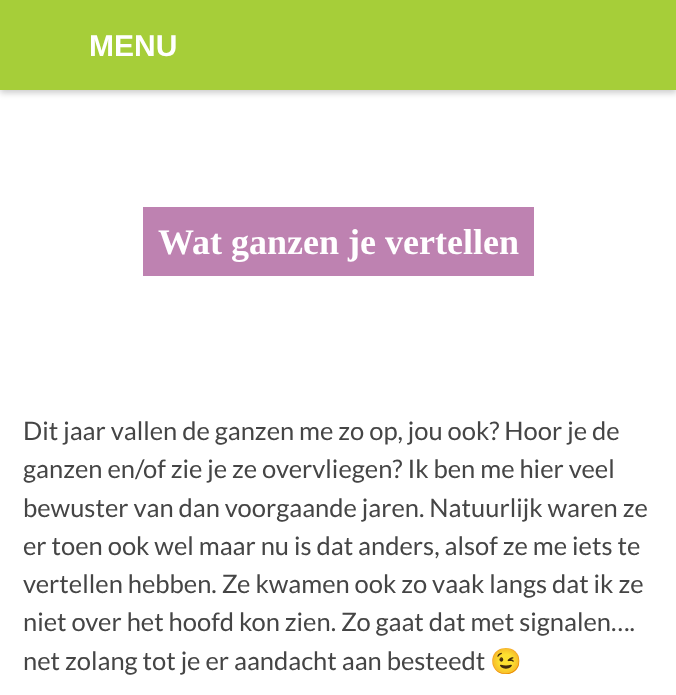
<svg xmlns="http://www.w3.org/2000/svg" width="676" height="695">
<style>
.a{font:bold 30px Liberation Sans;fill:#fff}
.b{font:bold 36px Liberation Serif;fill:#fff}
.c{font:25.5px Lato;fill:#454545}
.d{font:25.5px Noto Color Emoji;fill:#454545}
</style>
<rect width="100%" height="100%" fill="#fff"/>
<path fill="#00000033" filter="blur(3px)" d="M0 3h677v90H0z"/>
<path fill="#a6ce39" d="M0 0h676v90H0z"/>
<path fill="#be82b1" d="M143 207h391v69H143z"/>
<text class="a" x="89" y="56">MENU</text>
<text class="b" x="158" y="254">Wat ganzen je vertellen</text>
<text class="c" x="23" y="440">Dit jaar vallen de ganzen me zo op, jou ook? Hoor je de</text>
<text class="c" x="23" y="478">ganzen en/of zie je ze overvliegen? Ik ben me hier veel</text>
<text class="c" x="23" y="517">bewuster van dan voorgaande jaren. Natuurlijk waren ze</text>
<text class="c" x="23" y="555">er toen ook wel maar nu is dat anders, alsof ze me iets te</text>
<text class="c" x="23" y="593">vertellen hebben. Ze kwamen ook zo vaak langs dat ik ze</text>
<text class="c" x="23" y="631">niet over het hoofd kon zien. Zo gaat dat met signalen….</text>
<text class="c" x="23" y="670">net zolang tot je er aandacht aan besteedt</text>
<text class="d" x="490" y="670">😉</text>
</svg>
